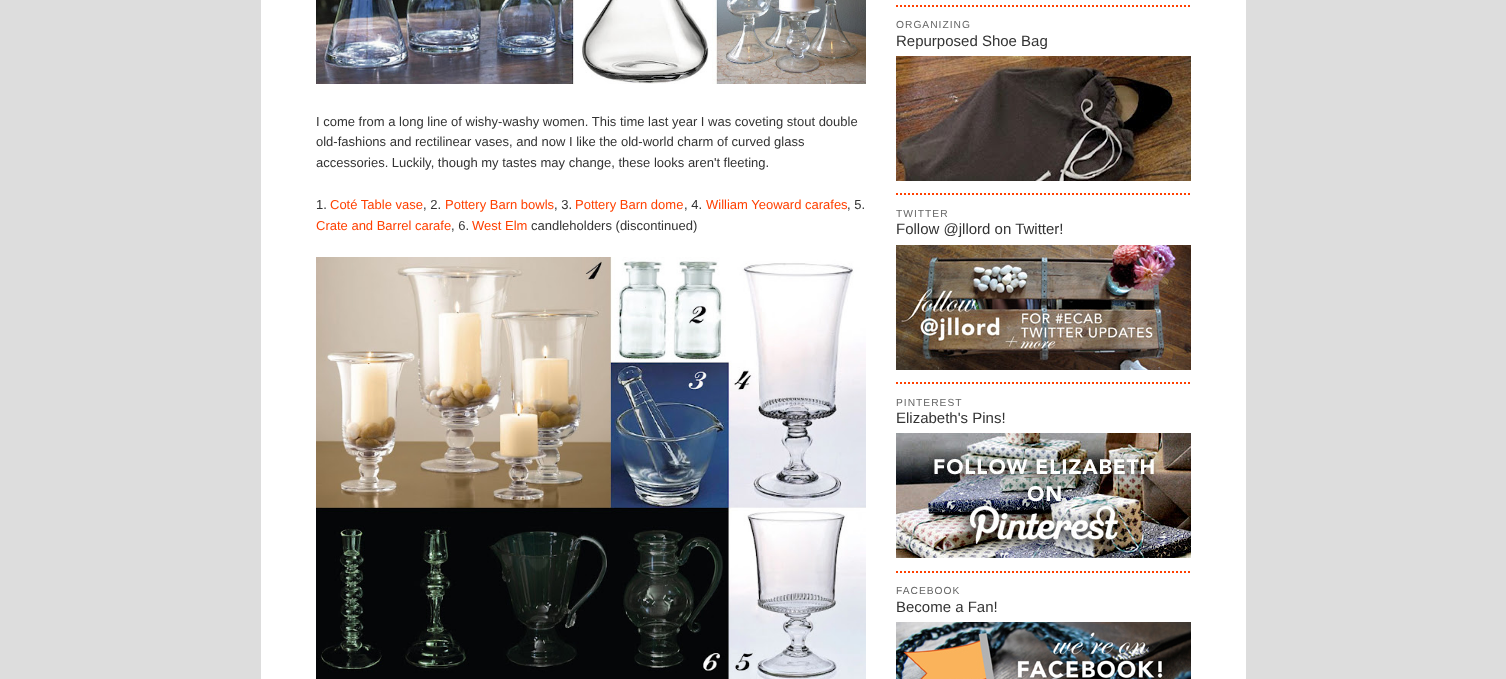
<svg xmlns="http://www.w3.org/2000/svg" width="1506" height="679">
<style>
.a{font:13px Liberation Sans;fill:#333}
.b{font:13px Liberation Sans;fill:#ff4000}
.c{font:10.25px Liberation Sans;letter-spacing:1px;fill:#666}
.d{font:15px Liberation Sans;fill:#333}
</style>
<rect width="100%" height="100%" fill="#ddd"/>
<path fill="#fff" d="M261 0h985v679H261z"/>
<image href="1.png" x="316" y="0" width="550" height="84"/>
<image href="2.png" x="316" y="257" width="550" height="422"/>
<path fill="none" stroke="#ff4000" stroke-width="2" stroke-dasharray="2 2" d="M896 6h295"/>
<path fill="none" stroke="#ff4000" stroke-width="2" stroke-dasharray="2 2" d="M896 194h295"/>
<image href="3.png" x="896" y="56" width="295" height="125"/>
<path fill="none" stroke="#ff4000" stroke-width="2" stroke-dasharray="2 2" d="M896 383h295"/>
<image href="4.png" x="896" y="245" width="295" height="125"/>
<path fill="none" stroke="#ff4000" stroke-width="2" stroke-dasharray="2 2" d="M896 572h295"/>
<image href="5.png" x="896" y="433" width="295" height="125"/>
<image href="6.png" x="896" y="622" width="295" height="57"/>
<text class="a" x="316" y="126">I come from a long line of wishy-washy women. This time last year I was coveting stout double</text>
<text class="a" x="316" y="146">old-fashions and rectilinear vases, and now I like the old-world charm of curved glass</text>
<text class="a" x="316" y="167">accessories. Luckily, though my tastes may change, these looks aren't fleeting.</text>
<text class="a" x="316" y="209">1.</text>
<text class="b" x="330" y="209">Coté Table vase</text>
<text class="a" x="423" y="209">, 2.</text>
<text class="b" x="445" y="209">Pottery Barn bowls</text>
<text class="a" x="554" y="209">, 3.</text>
<text class="b" x="575" y="209">Pottery Barn dome</text>
<text class="a" x="684" y="209">, 4.</text>
<text class="b" x="706" y="209">William Yeoward carafes</text>
<text class="a" x="847" y="209">, 5.</text>
<text class="b" x="316" y="230">Crate and Barrel carafe</text>
<text class="a" x="451" y="230">, 6.</text>
<text class="b" x="472" y="230">West Elm</text>
<text class="a" x="531" y="230">candleholders (discontinued)</text>
<text class="c" x="896" y="28">ORGANIZING</text>
<text class="d" x="896" y="46">Repurposed Shoe Bag</text>
<text class="c" x="896" y="217">TWITTER</text>
<text class="d" x="896" y="234">Follow @jllord on Twitter!</text>
<text class="c" x="896" y="406">PINTEREST</text>
<text class="d" x="896" y="423">Elizabeth's Pins!</text>
<text class="c" x="896" y="594">FACEBOOK</text>
<text class="d" x="896" y="612">Become a Fan!</text>
</svg>
